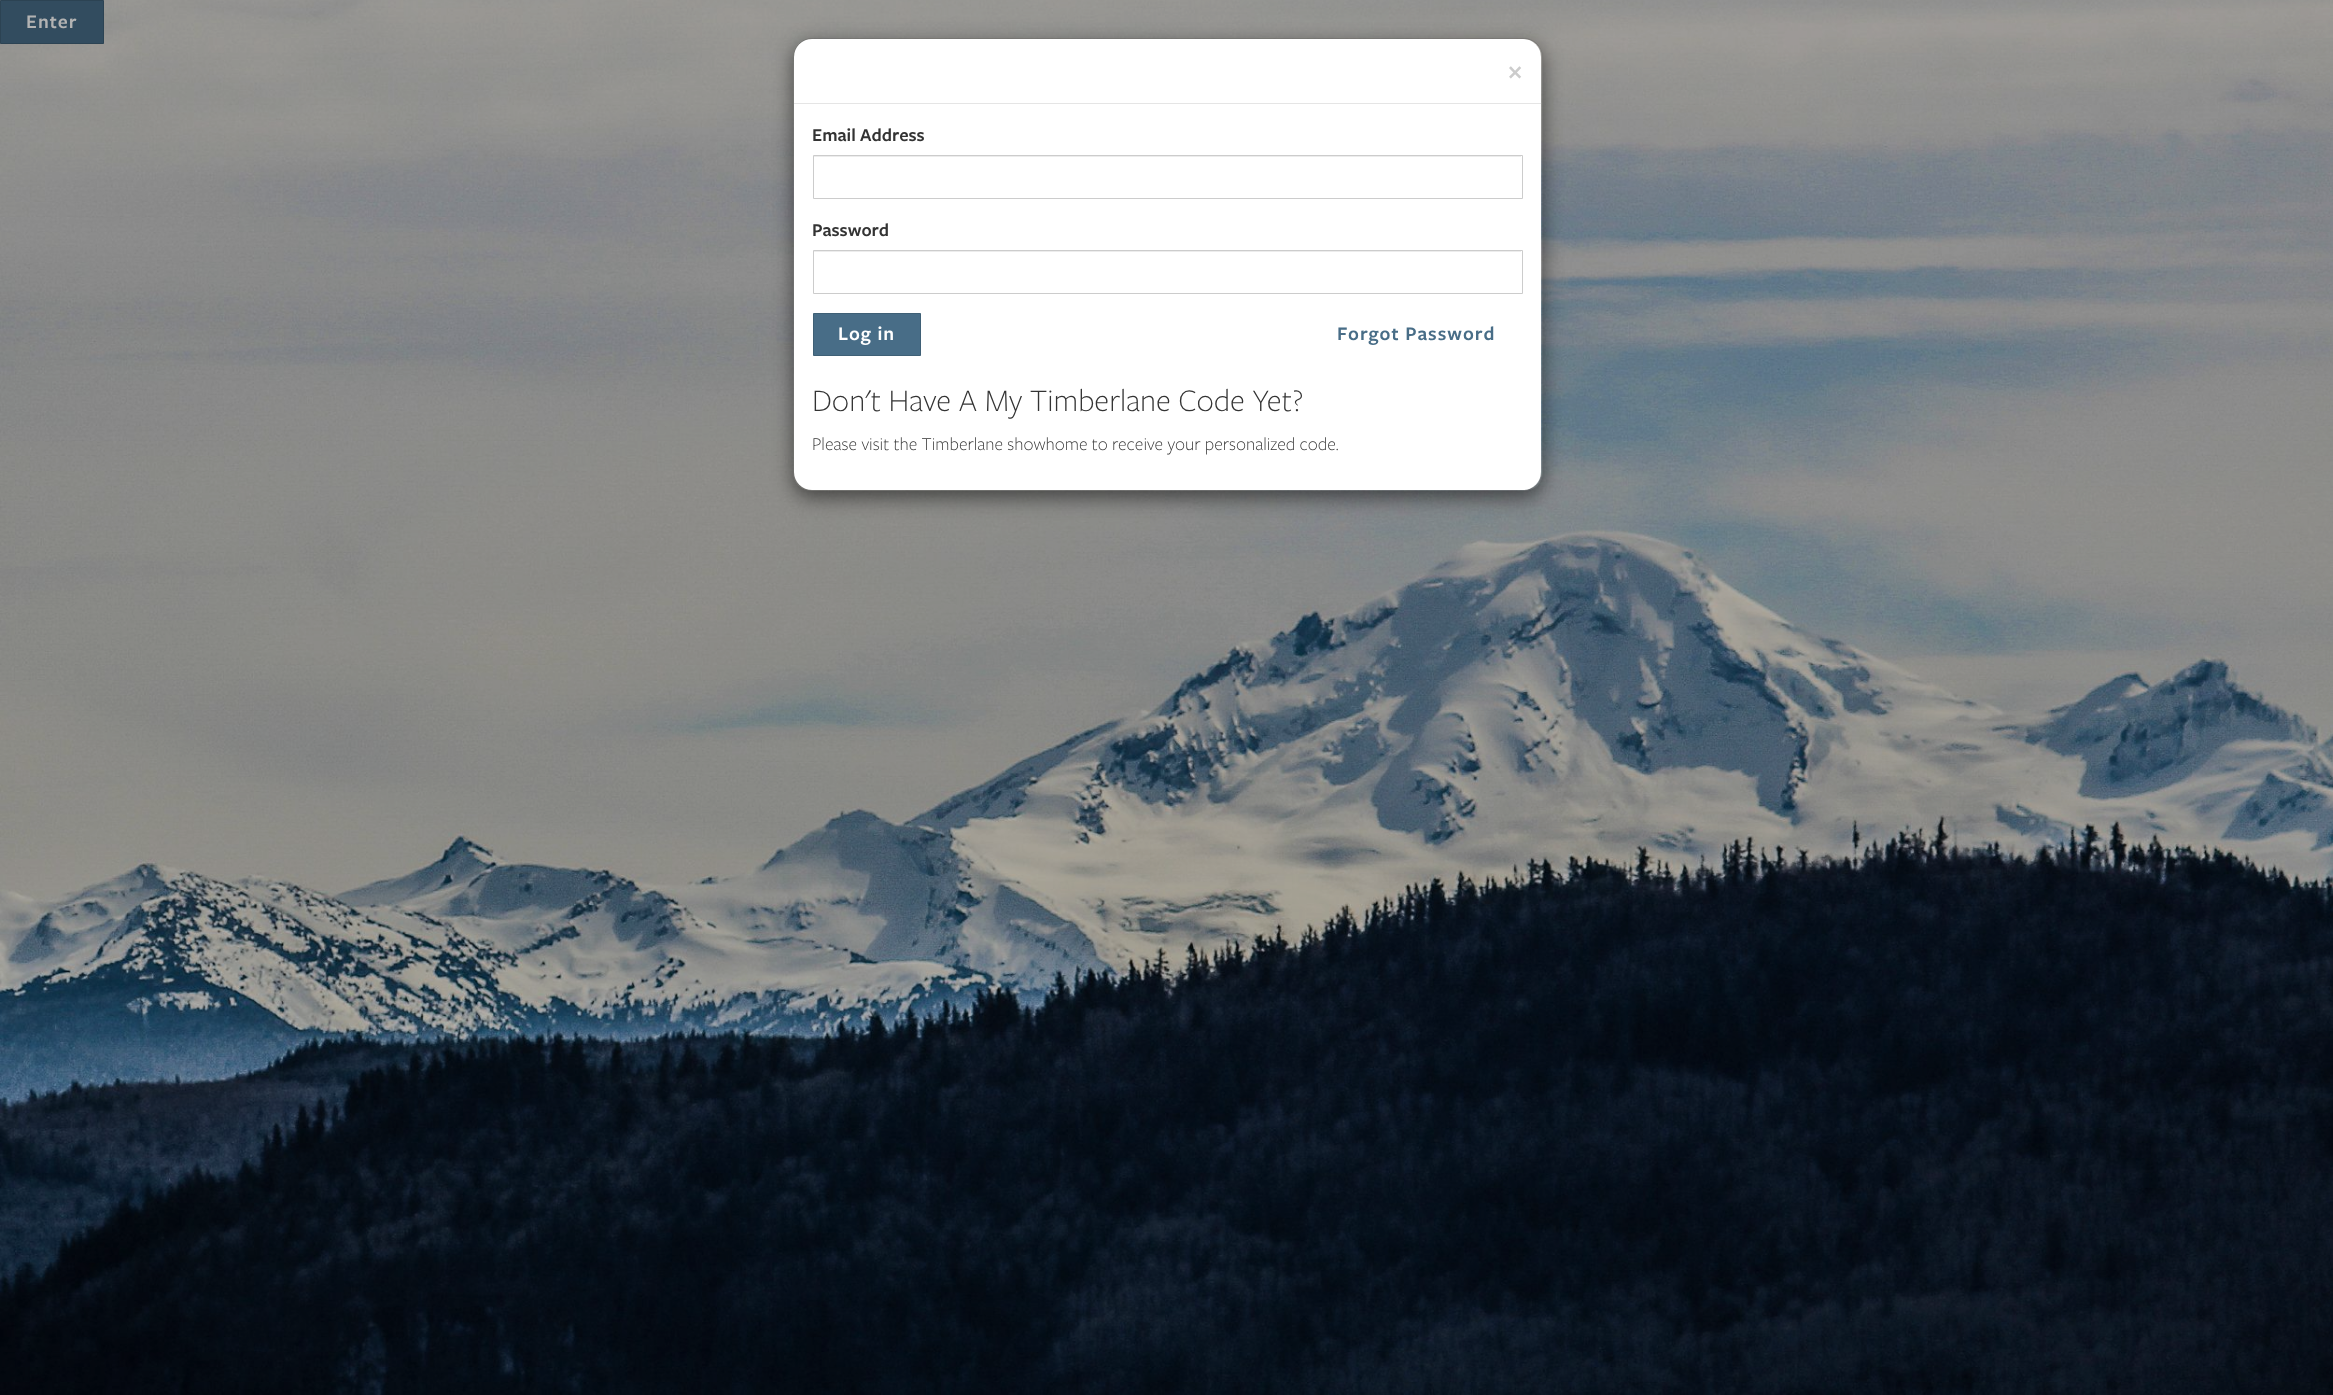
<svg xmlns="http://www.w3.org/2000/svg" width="2333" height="1395">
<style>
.a{font:600 20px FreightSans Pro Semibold;letter-spacing:1px;fill:#b3b3b3}
.b{font:600 28px FreightSans Pro Semibold;fill:#ccc}
.c{font:600 18.75px FreightSans Pro Semibold;fill:#333}
.d{font:600 20px FreightSans Pro Semibold;letter-spacing:1px;fill:#fff}
.e{font:600 20px FreightSans Pro Semibold;letter-spacing:1px;fill:#486d87}
.f{font:300 32.5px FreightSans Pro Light;fill:#333}
.g{font:300 18.75px FreightSans Pro Light;fill:#333}
</style>
<defs>
<clipPath id="clip1"><path d="M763 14h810v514h-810zm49 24h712c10.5 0 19 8.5 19 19v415c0 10.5-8.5 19-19 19h-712c-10.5 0-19-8.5-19-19v-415c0-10.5 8.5-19 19-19z" clip-rule="evenodd"/></clipPath>
</defs>
<rect width="100%" height="100%" fill="#fff"/>
<image href="1.png" x="0" y="0" width="2333" height="1395"/>
<path fill="#324c5f" stroke="#2c4353" d="M0.5 0.5h103v43H0.5z"/>
<g clip-path="url(#clip1)">
<rect fill="#00000080" filter="blur(9.5px)" x="793" y="44" width="750" height="454" rx="19"/>
</g>
<rect fill="#fff" x="794" y="39" width="747" height="451" rx="18"/>
<rect fill="none" stroke="#00000033" x="793.5" y="38.5" width="749" height="452" rx="18.5"/>
<path fill="#e5e5e5" d="M794 103h747v1H794z"/>
<path fill="#ececec" d="M814 156h707v1H814z"/>
<path fill="none" stroke="#ccc" d="M813.5 155.5h709v43H813.5z"/>
<path fill="#ececec" d="M814 251h707v1H814z"/>
<path fill="none" stroke="#ccc" d="M813.5 250.5h709v43H813.5z"/>
<path fill="#486d87" stroke="#3f6076" d="M813.5 313.5h107v42H813.5z"/>
<text class="a" x="26" y="28">Enter</text>
<text class="b" x="1508" y="79">×</text>
<text class="c" x="812" y="141">Email Address</text>
<text class="c" x="812" y="236">Password</text>
<text class="d" x="838" y="340">Log in</text>
<text class="e" x="1337" y="340">Forgot Password</text>
<text class="f" x="812" y="411">Don't Have A My Timberlane Code Yet?</text>
<text class="g" x="812" y="450">Please visit the Timberlane showhome to receive your personalized code.</text>
</svg>
